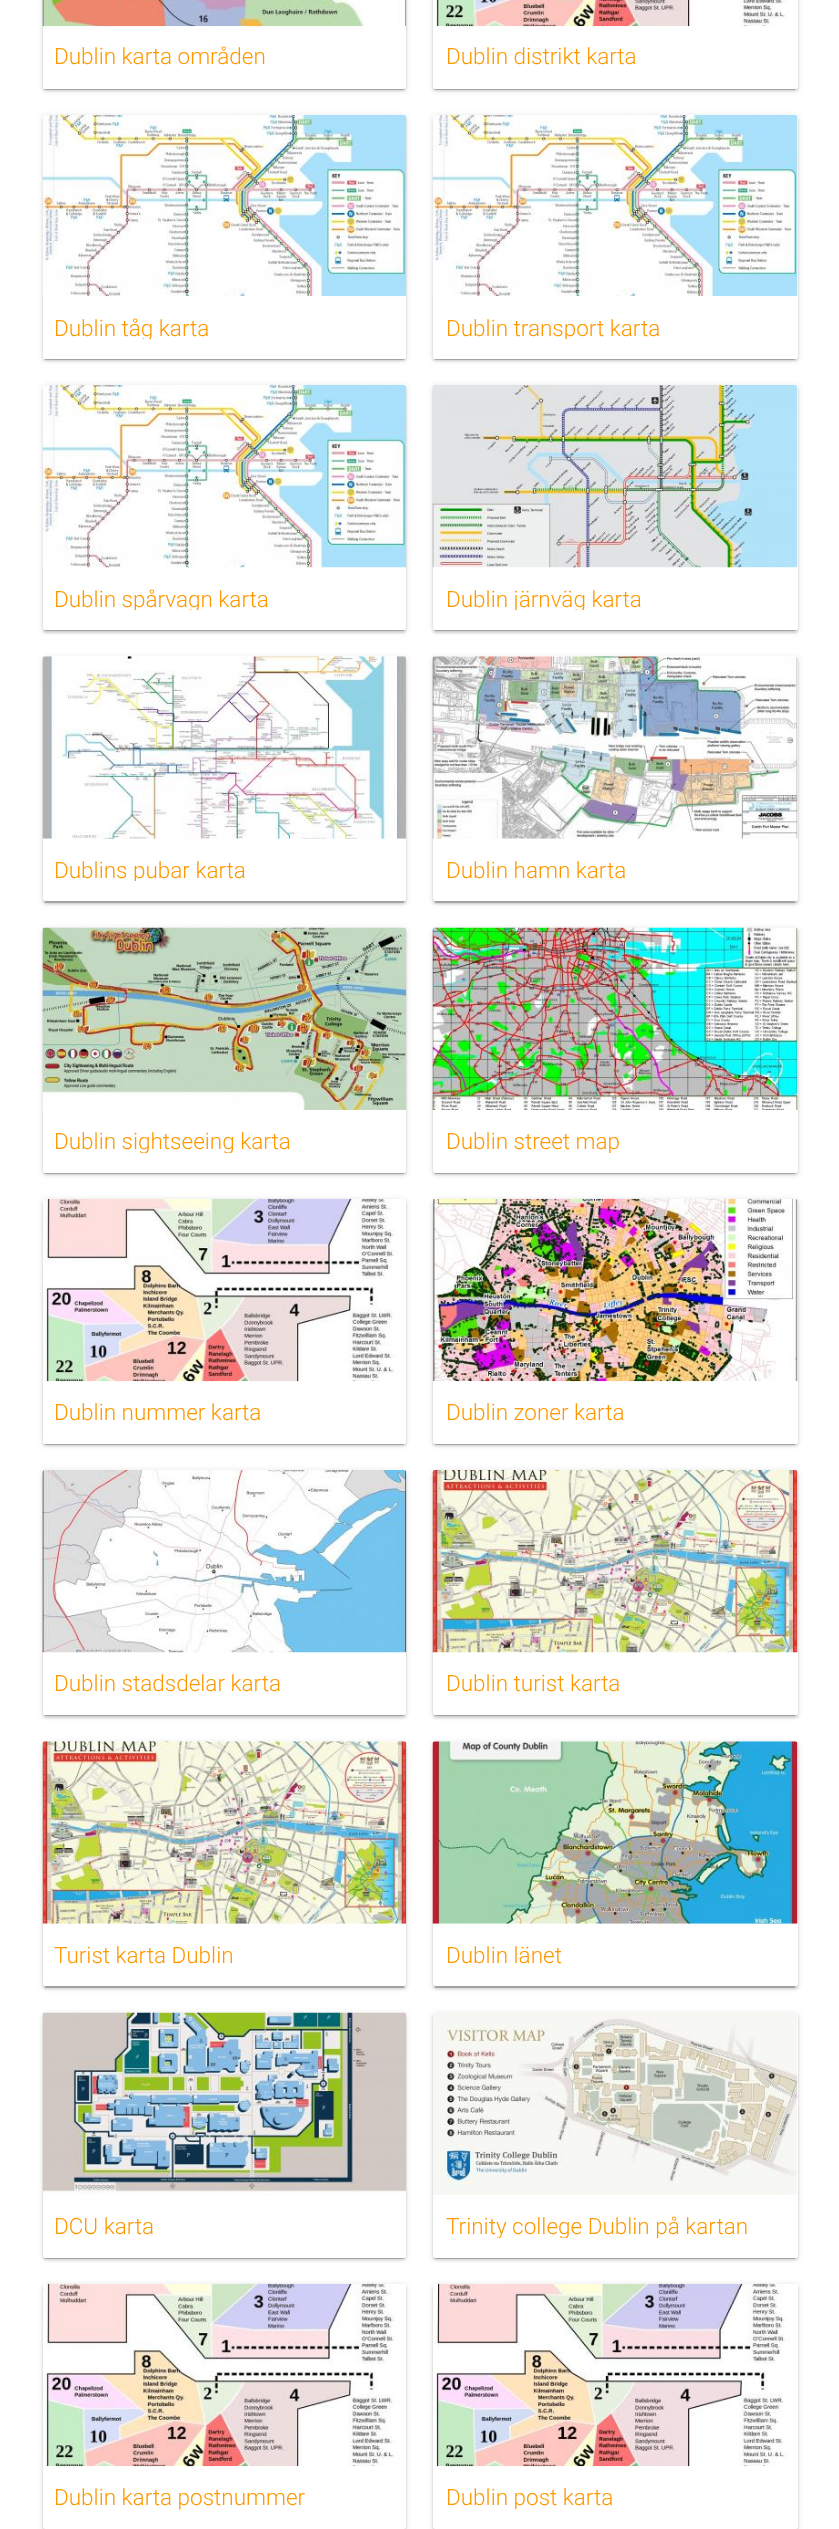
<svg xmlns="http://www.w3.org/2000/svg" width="839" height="2529">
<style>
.a{font:300 22.5px Roboto;fill:#ff9800}
</style>
<defs>
<clipPath id="clip1"><path d="M55 316h339v23H55z"/></clipPath>
<clipPath id="clip2"><path d="M445 316h340v23H445z"/></clipPath>
<clipPath id="clip3"><path d="M55 588h339v22H55z"/></clipPath>
<clipPath id="clip4"><path d="M445 588h340v22H445z"/></clipPath>
<clipPath id="clip5"><path d="M55 859h339v22H55z"/></clipPath>
<clipPath id="clip6"><path d="M55 1130h339v23H55z"/></clipPath>
<clipPath id="clip7"><path d="M445 1130h340v23H445z"/></clipPath>
<clipPath id="clip8"><path d="M445 2215h340v23H445z"/></clipPath>
<clipPath id="clip9"><path d="M445 2486h340v23H445z"/></clipPath>
</defs>
<rect width="100%" height="100%" fill="#fff"/>
<path fill="#00000033" filter="blur(0.5px)" d="M45 -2h359v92H45z"/>
<rect fill="#0000001f" filter="blur(3px)" x="43" y="-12" width="363" height="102" rx="2.5"/>
<rect fill="#00000024" filter="blur(1px)" x="43" y="-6" width="363" height="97" rx="2.5"/>
<rect fill="#fff" x="43" y="-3" width="363" height="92" rx="2.5"/>
<image href="1.png" x="42" y="0" width="365" height="27"/>
<path fill="#00000033" filter="blur(0.5px)" d="M435 -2h360v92H435z"/>
<rect fill="#0000001f" filter="blur(3px)" x="433" y="-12" width="365" height="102" rx="2.5"/>
<rect fill="#00000024" filter="blur(1px)" x="433" y="-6" width="365" height="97" rx="2.5"/>
<rect fill="#fff" x="433" y="-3" width="365" height="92" rx="2.5"/>
<image href="2.png" x="436" y="0" width="354" height="27"/>
<path fill="#00000033" filter="blur(0.5px)" d="M45 121h359v239H45z"/>
<rect fill="#0000001f" filter="blur(3px)" x="43" y="116" width="363" height="244" rx="2.5"/>
<rect fill="#00000024" filter="blur(1px)" x="43" y="118" width="363" height="243" rx="2.5"/>
<rect fill="#fff" x="43" y="115" width="363" height="244" rx="2.5"/>
<image href="3.png" x="42" y="115" width="365" height="182"/>
<path fill="#00000033" filter="blur(0.5px)" d="M435 121h360v239H435z"/>
<rect fill="#0000001f" filter="blur(3px)" x="433" y="116" width="365" height="244" rx="2.5"/>
<rect fill="#00000024" filter="blur(1px)" x="433" y="118" width="365" height="243" rx="2.5"/>
<rect fill="#fff" x="433" y="115" width="365" height="244" rx="2.5"/>
<image href="4.png" x="432" y="115" width="366" height="182"/>
<path fill="#00000033" filter="blur(0.5px)" d="M45 391h359v240H45z"/>
<rect fill="#0000001f" filter="blur(3px)" x="43" y="386" width="363" height="245" rx="2.5"/>
<rect fill="#00000024" filter="blur(1px)" x="43" y="388" width="363" height="245" rx="2.5"/>
<rect fill="#fff" x="43" y="385" width="363" height="245" rx="2.5"/>
<image href="5.png" x="42" y="385" width="365" height="183"/>
<path fill="#00000033" filter="blur(0.5px)" d="M435 391h360v240H435z"/>
<rect fill="#0000001f" filter="blur(3px)" x="433" y="386" width="365" height="245" rx="2.5"/>
<rect fill="#00000024" filter="blur(1px)" x="433" y="388" width="365" height="245" rx="2.5"/>
<rect fill="#fff" x="433" y="385" width="365" height="245" rx="2.5"/>
<image href="6.png" x="432" y="385" width="366" height="183"/>
<path fill="#00000033" filter="blur(0.5px)" d="M45 663h359v240H45z"/>
<rect fill="#0000001f" filter="blur(3px)" x="43" y="658" width="363" height="245" rx="2.5"/>
<rect fill="#00000024" filter="blur(1px)" x="43" y="659" width="363" height="245" rx="2.5"/>
<rect fill="#fff" x="43" y="656" width="363" height="245" rx="2.5"/>
<image href="7.png" x="42" y="656" width="364" height="183"/>
<path fill="#00000033" filter="blur(0.5px)" d="M435 663h360v240H435z"/>
<rect fill="#0000001f" filter="blur(3px)" x="433" y="658" width="365" height="245" rx="2.5"/>
<rect fill="#00000024" filter="blur(1px)" x="433" y="659" width="365" height="245" rx="2.5"/>
<rect fill="#fff" x="433" y="656" width="365" height="245" rx="2.5"/>
<image href="8.png" x="432" y="656" width="366" height="183"/>
<path fill="#00000033" filter="blur(0.5px)" d="M45 934h359v240H45z"/>
<rect fill="#0000001f" filter="blur(3px)" x="43" y="929" width="363" height="245" rx="2.5"/>
<rect fill="#00000024" filter="blur(1px)" x="43" y="930" width="363" height="245" rx="2.5"/>
<rect fill="#fff" x="43" y="928" width="363" height="245" rx="2.5"/>
<image href="9.png" x="42" y="927" width="365" height="183"/>
<path fill="#00000033" filter="blur(0.5px)" d="M435 934h360v240H435z"/>
<rect fill="#0000001f" filter="blur(3px)" x="433" y="929" width="365" height="245" rx="2.5"/>
<rect fill="#00000024" filter="blur(1px)" x="433" y="930" width="365" height="245" rx="2.5"/>
<rect fill="#fff" x="433" y="928" width="365" height="245" rx="2.5"/>
<image href="10.png" x="432" y="927" width="366" height="183"/>
<path fill="#00000033" filter="blur(0.5px)" d="M45 1205h359v240H45z"/>
<rect fill="#0000001f" filter="blur(3px)" x="43" y="1200" width="363" height="245" rx="2.5"/>
<rect fill="#00000024" filter="blur(1px)" x="43" y="1201" width="363" height="245" rx="2.5"/>
<rect fill="#fff" x="43" y="1199" width="363" height="245" rx="2.5"/>
<image href="11.png" x="43" y="1198" width="356" height="184"/>
<path fill="#00000033" filter="blur(0.5px)" d="M435 1205h360v240H435z"/>
<rect fill="#0000001f" filter="blur(3px)" x="433" y="1200" width="365" height="245" rx="2.5"/>
<rect fill="#00000024" filter="blur(1px)" x="433" y="1201" width="365" height="245" rx="2.5"/>
<rect fill="#fff" x="433" y="1199" width="365" height="245" rx="2.5"/>
<image href="12.png" x="433" y="1198" width="365" height="184"/>
<path fill="#00000033" filter="blur(0.5px)" d="M45 1476h359v240H45z"/>
<rect fill="#0000001f" filter="blur(3px)" x="43" y="1471" width="363" height="245" rx="2.5"/>
<rect fill="#00000024" filter="blur(1px)" x="43" y="1473" width="363" height="245" rx="2.5"/>
<rect fill="#fff" x="43" y="1470" width="363" height="245" rx="2.5"/>
<image href="13.png" x="42" y="1470" width="365" height="183"/>
<path fill="#00000033" filter="blur(0.5px)" d="M435 1476h360v240H435z"/>
<rect fill="#0000001f" filter="blur(3px)" x="433" y="1471" width="365" height="245" rx="2.5"/>
<rect fill="#00000024" filter="blur(1px)" x="433" y="1473" width="365" height="245" rx="2.5"/>
<rect fill="#fff" x="433" y="1470" width="365" height="245" rx="2.5"/>
<image href="14.png" x="432" y="1470" width="366" height="183"/>
<path fill="#00000033" filter="blur(0.5px)" d="M45 1748h359v240H45z"/>
<rect fill="#0000001f" filter="blur(3px)" x="43" y="1743" width="363" height="245" rx="2.5"/>
<rect fill="#00000024" filter="blur(1px)" x="43" y="1744" width="363" height="245" rx="2.5"/>
<rect fill="#fff" x="43" y="1741" width="363" height="245" rx="2.5"/>
<image href="15.png" x="42" y="1741" width="365" height="183"/>
<path fill="#00000033" filter="blur(0.5px)" d="M435 1748h360v240H435z"/>
<rect fill="#0000001f" filter="blur(3px)" x="433" y="1743" width="365" height="245" rx="2.5"/>
<rect fill="#00000024" filter="blur(1px)" x="433" y="1744" width="365" height="245" rx="2.5"/>
<rect fill="#fff" x="433" y="1741" width="365" height="245" rx="2.5"/>
<image href="16.png" x="432" y="1741" width="366" height="183"/>
<path fill="#00000033" filter="blur(0.5px)" d="M45 2019h359v240H45z"/>
<rect fill="#0000001f" filter="blur(3px)" x="43" y="2014" width="363" height="245" rx="2.5"/>
<rect fill="#00000024" filter="blur(1px)" x="43" y="2015" width="363" height="245" rx="2.5"/>
<rect fill="#fff" x="43" y="2013" width="363" height="245" rx="2.5"/>
<image href="17.png" x="42" y="2012" width="364" height="183"/>
<path fill="#00000033" filter="blur(0.5px)" d="M435 2019h360v240H435z"/>
<rect fill="#0000001f" filter="blur(3px)" x="433" y="2014" width="365" height="245" rx="2.5"/>
<rect fill="#00000024" filter="blur(1px)" x="433" y="2015" width="365" height="245" rx="2.5"/>
<rect fill="#fff" x="433" y="2013" width="365" height="245" rx="2.5"/>
<image href="18.png" x="433" y="2013" width="365" height="182"/>
<path fill="#00000033" filter="blur(0.5px)" d="M45 2290h359v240H45z"/>
<rect fill="#0000001f" filter="blur(3px)" x="43" y="2285" width="363" height="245" rx="2.5"/>
<rect fill="#00000024" filter="blur(1px)" x="43" y="2286" width="363" height="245" rx="2.5"/>
<rect fill="#fff" x="43" y="2284" width="363" height="245" rx="2.5"/>
<image href="11.png" x="43" y="2283" width="356" height="184"/>
<path fill="#00000033" filter="blur(0.5px)" d="M435 2290h360v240H435z"/>
<rect fill="#0000001f" filter="blur(3px)" x="433" y="2285" width="365" height="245" rx="2.5"/>
<rect fill="#00000024" filter="blur(1px)" x="433" y="2286" width="365" height="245" rx="2.5"/>
<rect fill="#fff" x="433" y="2284" width="365" height="245" rx="2.5"/>
<image href="19.png" x="433" y="2283" width="357" height="184"/>
<text class="a" x="54" y="64">Dublin karta områden</text>
<text class="a" x="446" y="64">Dublin distrikt karta</text>
<g clip-path="url(#clip1)">
<text class="a" x="54" y="336">Dublin tåg karta</text>
</g>
<g clip-path="url(#clip2)">
<text class="a" x="446" y="336">Dublin transport karta</text>
</g>
<g clip-path="url(#clip3)">
<text class="a" x="54" y="607">Dublin spårvagn karta</text>
</g>
<g clip-path="url(#clip4)">
<text class="a" x="446" y="607">Dublin järnväg karta</text>
</g>
<g clip-path="url(#clip5)">
<text class="a" x="54" y="878">Dublins pubar karta</text>
</g>
<text class="a" x="446" y="878">Dublin hamn karta</text>
<g clip-path="url(#clip6)">
<text class="a" x="54" y="1149">Dublin sightseeing karta</text>
</g>
<g clip-path="url(#clip7)">
<text class="a" x="446" y="1149">Dublin street map</text>
</g>
<text class="a" x="54" y="1420">Dublin nummer karta</text>
<text class="a" x="446" y="1420">Dublin zoner karta</text>
<text class="a" x="54" y="1691">Dublin stadsdelar karta</text>
<text class="a" x="446" y="1691">Dublin turist karta</text>
<text class="a" x="54" y="1963">Turist karta Dublin</text>
<text class="a" x="446" y="1963">Dublin länet</text>
<text class="a" x="54" y="2234">DCU karta</text>
<g clip-path="url(#clip8)">
<text class="a" x="446" y="2234">Trinity college Dublin på kartan</text>
</g>
<text class="a" x="54" y="2505">Dublin karta postnummer</text>
<g clip-path="url(#clip9)">
<text class="a" x="446" y="2505">Dublin post karta</text>
</g>
</svg>
